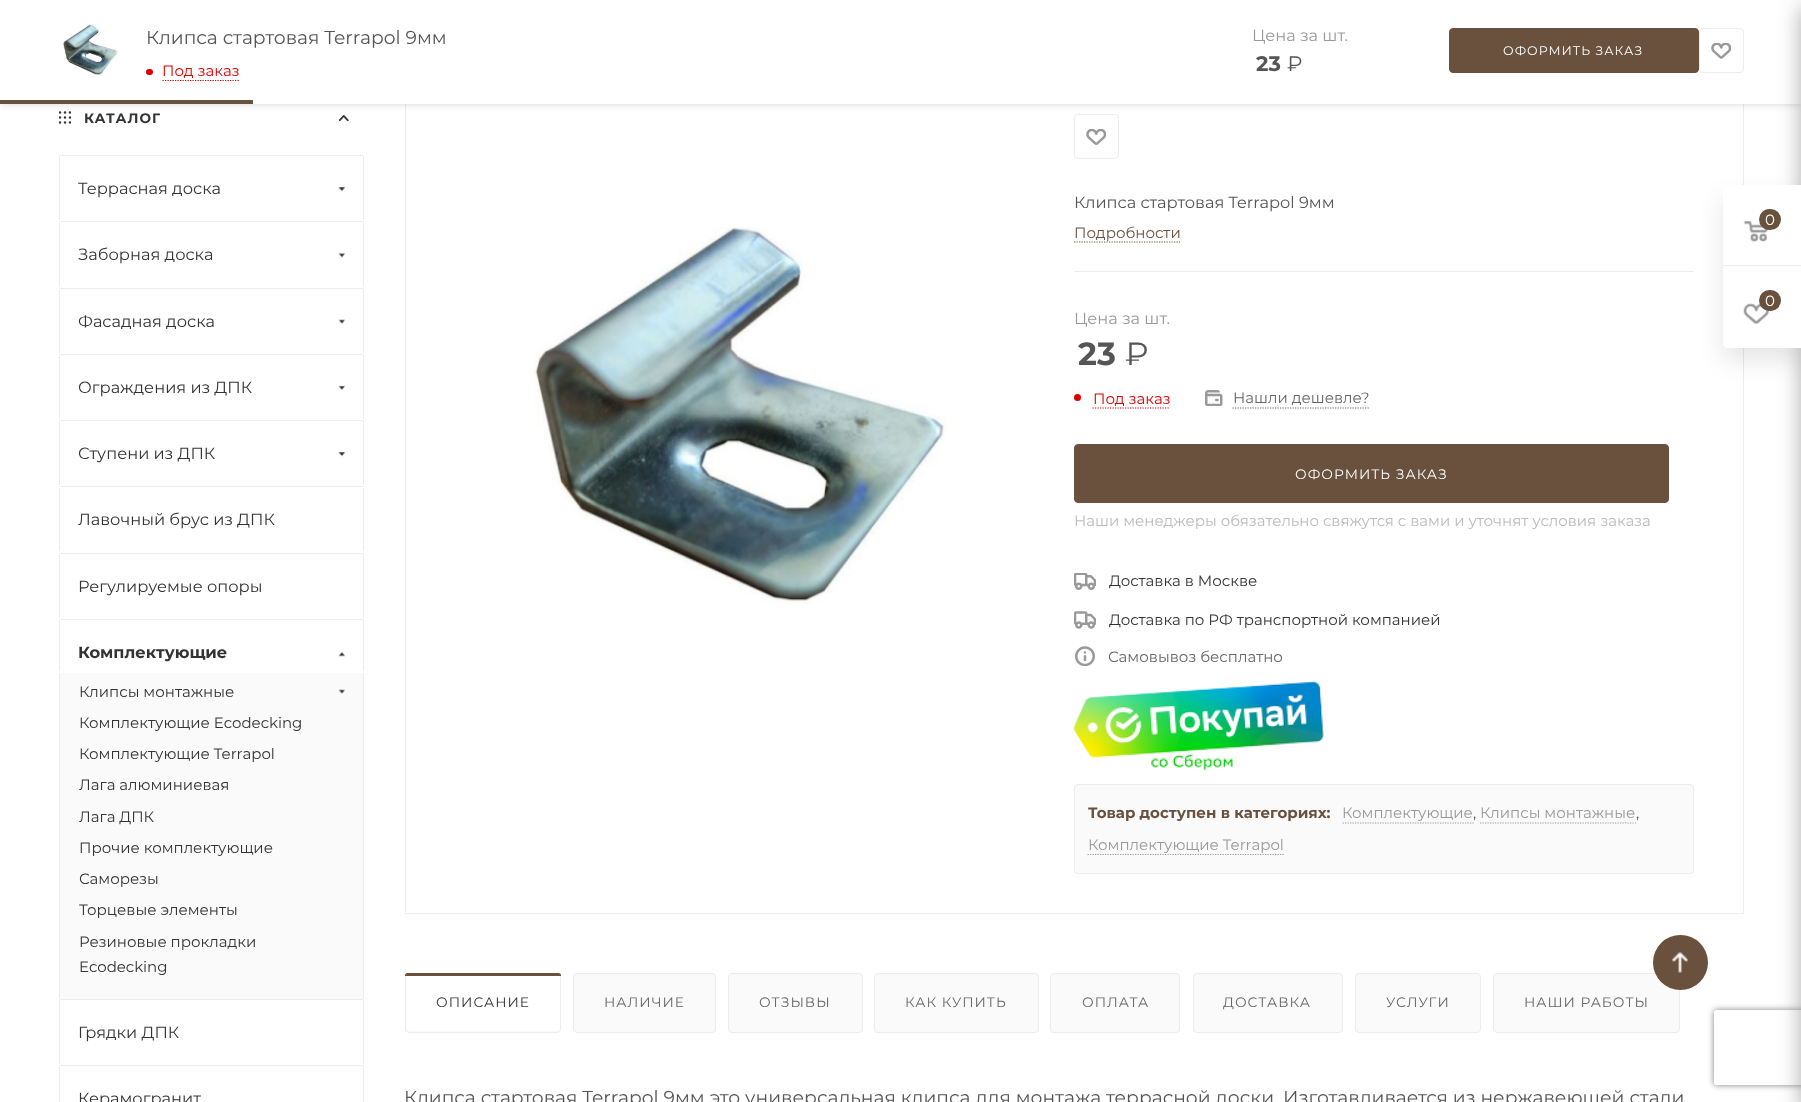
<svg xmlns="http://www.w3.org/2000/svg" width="1801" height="1102">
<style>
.a{font:18.75px Montserrat;fill:#555}
.b{font:15px Montserrat;fill:#d00}
.c{font:16.25px Montserrat;fill:#999}
.d{font:bold 21px Montserrat;fill:#555}
.e{font:21px 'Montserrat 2';fill:#555}
.f{font:12.5px Montserrat;letter-spacing:1px;fill:#fff}
.g{font:bold 13.75px Montserrat;letter-spacing:1px;fill:#333}
.h{font:16.25px Montserrat;fill:#333}
.i{font:bold 16.25px Montserrat;fill:#333}
.j{font:15px Montserrat;fill:#333}
.k{font:16.25px Montserrat;fill:#555}
.l{font:15px Montserrat;fill:#6a513d}
.m{font:bold 32px Montserrat;fill:#555}
.n{font:32px 'Montserrat 2';fill:#555}
.o{font:15px Montserrat;fill:#666}
.p{font:13.75px Montserrat;letter-spacing:1px;fill:#fff}
.q{font:15px Montserrat;fill:#bbb}
.r{font:bold 15px Montserrat;fill:#6a513d}
.s{font:15px Montserrat;fill:#999}
.t{font:15px Montserrat;fill:#555}
.u{font:13.75px Montserrat;letter-spacing:1px;fill:#333}
.v{font:13.75px Montserrat;letter-spacing:1px;fill:#666}
.w{font:15px Montserrat;fill:#fff}
</style>
<defs>
<clipPath id="clip1"><path d="M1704 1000h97v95h-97zm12.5 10h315c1.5 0 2.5 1 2.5 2.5v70c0 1.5-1 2.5-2.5 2.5h-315c-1.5 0-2.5-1-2.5-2.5v-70c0-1.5 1-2.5 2.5-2.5z" clip-rule="evenodd"/></clipPath>
</defs>
<rect width="100%" height="100%" fill="#fff"/>
<image href="3.png" x="59" y="111" width="12" height="13"/>
<path fill="none" stroke="#ececec" d="M405.5 79.5h1338v834H405.5z"/>
<rect fill="none" stroke="#ececec" x="1074.5" y="114.5" width="44" height="44" rx="3.5"/>
<path fill="#00000021" filter="blur(3px)" d="M0 1h1801v104H0z"/>
<path fill="#fff" d="M0 0h1801v104H0z"/>
<image href="1.png" x="63" y="25" width="55" height="50"/>
<rect fill="#d00" x="146" y="69" width="7" height="6" rx="3"/>
<path fill="none" stroke="#d00" stroke-width="1.2" stroke-dasharray="1.25 1.25" d="M162.5 80.5h76.5"/>
<rect fill="#6a513d" stroke="#6a513d" x="1449.5" y="28.5" width="249" height="44" rx="3.5"/>
<rect fill="none" stroke="#ececec" x="1699.5" y="28.5" width="44" height="44" rx="3.5"/>
<image href="2.png" x="1711" y="43" width="20" height="16"/>
<path fill="#6a513d" d="M0 100h253v4H0z"/>
<image href="4.png" x="339" y="115" width="10" height="6"/>
<path fill="#ececec" d="M60 155h303v1H60z"/>
<path fill="#ececec" d="M363 156h1v64H363z"/>
<path fill="#ececec" d="M59 156h1v64H59z"/>
<image href="5.png" x="338" y="187" width="7" height="5"/>
<path fill="#ececec" d="M60 221h303v1H60z"/>
<path fill="#ececec" d="M363 223h1v63H363z"/>
<path fill="#ececec" d="M59 223h1v63H59z"/>
<image href="6.png" x="338" y="253" width="7" height="5"/>
<path fill="#ececec" d="M60 288h303v1H60z"/>
<path fill="#ececec" d="M363 289h1v64H363z"/>
<path fill="#ececec" d="M59 289h1v64H59z"/>
<image href="7.png" x="338" y="319" width="7" height="5"/>
<path fill="#ececec" d="M60 354h303v1H60z"/>
<path fill="#ececec" d="M363 355h1v64H363z"/>
<path fill="#ececec" d="M59 355h1v64H59z"/>
<image href="8.png" x="338" y="385" width="7" height="5"/>
<path fill="#ececec" d="M60 420h303v1H60z"/>
<path fill="#ececec" d="M363 421h1v64H363z"/>
<path fill="#ececec" d="M59 421h1v64H59z"/>
<image href="9.png" x="338" y="452" width="7" height="5"/>
<path fill="#ececec" d="M60 486h303v1H60z"/>
<path fill="#ececec" d="M363 488h1v63H363z"/>
<path fill="#ececec" d="M59 488h1v63H59z"/>
<path fill="#ececec" d="M60 553h303v1H60z"/>
<path fill="#ececec" d="M363 554h1v64H363z"/>
<path fill="#ececec" d="M59 554h1v64H59z"/>
<path fill="#ececec" d="M60 619h303v1H60z"/>
<path fill="#ececec" d="M363 620h1v51H363z"/>
<path fill="#ececec" d="M59 620h1v51H59z"/>
<image href="10.png" x="338" y="652" width="7" height="5"/>
<path fill="#fafafa" d="M60 673h303v326H60z"/>
<path fill="#ececec" d="M363 673h1v326H363z"/>
<path fill="#ececec" d="M59 673h1v326H59z"/>
<image href="11.png" x="338" y="689" width="7" height="5"/>
<path fill="#ececec" d="M60 999h303v1H60z"/>
<path fill="#ececec" d="M363 1000h1v64H363z"/>
<path fill="#ececec" d="M59 1000h1v64H59z"/>
<path fill="#ececec" d="M60 1065h303v1H60z"/>
<path fill="#ececec" d="M363 1066h1v36H363z"/>
<path fill="#ececec" d="M59 1066h1v36H59z"/>
<image href="12.png" x="533" y="227" width="414" height="377"/>
<image href="13.png" x="1086" y="129" width="20" height="16"/>
<path fill="#ececec" d="M1074 271h620v1H1074z"/>
<path fill="none" stroke="#6a513d" stroke-width="1.2" stroke-dasharray="1.25 1.25" d="M1074 242h106"/>
<circle fill="#d00" cx="1077.5" cy="397.5" r="3.5"/>
<path fill="none" stroke="#d00" stroke-width="1.2" stroke-dasharray="1.25 1.25" d="M1092.5 408h77.5"/>
<image href="14.png" x="1205" y="390" width="18" height="16"/>
<path fill="none" stroke="#666" stroke-width="1.2" stroke-dasharray="1.25 1.25" d="M1232.5 408h136.5"/>
<rect fill="#6a513d" stroke="#6a513d" x="1074.5" y="444.5" width="594" height="58" rx="3.5"/>
<image href="15.png" x="1074" y="573" width="22" height="17"/>
<image href="16.png" x="1074" y="611" width="22" height="18"/>
<image href="17.png" x="1075" y="646" width="20" height="20"/>
<image href="18.png" x="1073" y="681" width="251" height="90"/>
<rect fill="#fafafa" stroke="#ececec" x="1074.5" y="784.5" width="619" height="89" rx="3.5"/>
<path fill="none" stroke="#999" stroke-width="1.2" stroke-dasharray="1.25 1.25" d="M1342.5 823h131.5"/>
<path fill="none" stroke="#999" stroke-width="1.2" stroke-dasharray="1.25 1.25" d="M1480 823h156"/>
<path fill="none" stroke="#999" stroke-width="1.2" stroke-dasharray="1.25 1.25" d="M1087.5 854.5h196.5"/>
<rect fill="#fafafa" stroke="#ececec" x="405.5" y="973.5" width="155" height="59" rx="3.5"/>
<rect fill="#fff" x="406" y="974" width="154" height="57" rx="4"/>
<path fill="#6a513d" d="M407.5 973h151c1.5 0 2.5 1 2.5 2.5v.5h-156v-.5c0-1.5 1-2.5 2.5-2.5z"/>
<rect fill="#fafafa" stroke="#ececec" x="573.5" y="973.5" width="142" height="59" rx="3.5"/>
<rect fill="#fafafa" stroke="#ececec" x="728.5" y="973.5" width="134" height="59" rx="3.5"/>
<rect fill="#fafafa" stroke="#ececec" x="874.5" y="973.5" width="164" height="59" rx="3.5"/>
<rect fill="#fafafa" stroke="#ececec" x="1050.5" y="973.5" width="129" height="59" rx="3.5"/>
<rect fill="#fafafa" stroke="#ececec" x="1193.5" y="973.5" width="149" height="59" rx="3.5"/>
<rect fill="#fafafa" stroke="#ececec" x="1355.5" y="973.5" width="125" height="59" rx="3.5"/>
<rect fill="#fafafa" stroke="#ececec" x="1493.5" y="973.5" width="186" height="59" rx="3.5"/>
<rect fill="#2c2c2c66" filter="blur(11px)" x="1801" y="8" width="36" height="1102" rx="2.5"/>
<rect fill="#0000001a" filter="blur(12.5px)" x="1723" y="198" width="78" height="162" rx="5"/>
<path fill="#fff" d="M1728 185h73v163h-73c-3 0-5-2-5-5v-153c0-3 2-5 5-5z"/>
<path fill="#ececec" d="M1723 265h78v1H1723z"/>
<image href="19.png" x="1743" y="221" width="25" height="21"/>
<rect fill="#6a513d" x="1759" y="209" width="22" height="21" rx="10.5"/>
<image href="20.png" x="1743" y="303" width="26" height="22"/>
<rect fill="#6a513d" x="1759" y="290" width="22" height="21" rx="10.5"/>
<circle fill="#6a513d" cx="1680.5" cy="962.5" r="27.5"/>
<image href="21.png" x="1672" y="952" width="16" height="21"/>
<g clip-path="url(#clip1)">
<rect fill="#808080" filter="blur(3px)" x="1714" y="1010" width="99" height="75" rx="2.5"/>
</g>
<text class="a" x="146" y="44">Клипса стартовая Terrapol 9мм</text>
<text class="b" x="162" y="76">Под заказ</text>
<text class="c" x="1252" y="41">Цена за шт.</text>
<text class="d" x="1256" y="71">23</text>
<text class="e" x="1287" y="71">₽</text>
<text class="f" x="1503" y="55">ОФОРМИТЬ ЗАКАЗ</text>
<text class="g" x="84" y="123">КАТАЛОГ</text>
<text class="h" x="78" y="194">Террасная доска</text>
<text class="h" x="78" y="260">Заборная доска</text>
<text class="h" x="78" y="327">Фасадная доска</text>
<text class="h" x="78" y="393">Ограждения из ДПК</text>
<text class="h" x="78" y="459">Ступени из ДПК</text>
<text class="h" x="78" y="525">Лавочный брус из ДПК</text>
<text class="h" x="78" y="592">Регулируемые опоры</text>
<text class="i" x="78" y="658">Комплектующие</text>
<text class="j" x="79" y="697">Клипсы монтажные</text>
<text class="j" x="79" y="728">Комплектующие Ecodecking</text>
<text class="j" x="79" y="759">Комплектующие Terrapol</text>
<text class="j" x="79" y="790">Лага алюминиевая</text>
<text class="j" x="79" y="822">Лага ДПК</text>
<text class="j" x="79" y="853">Прочие комплектующие</text>
<text class="j" x="79" y="884">Саморезы</text>
<text class="j" x="79" y="915">Торцевые элементы</text>
<text class="j" x="79" y="947">Резиновые прокладки</text>
<text class="j" x="79" y="972">Ecodecking</text>
<text class="h" x="78" y="1038">Грядки ДПК</text>
<text class="h" x="78" y="1104">Керамогранит</text>
<text class="k" x="1074" y="208">Клипса стартовая Terrapol 9мм</text>
<text class="l" x="1074" y="238">Подробности</text>
<text class="c" x="1074" y="324">Цена за шт.</text>
<text class="m" x="1078" y="365">23</text>
<text class="n" x="1125" y="365">₽</text>
<text class="b" x="1093" y="404">Под заказ</text>
<text class="o" x="1233" y="403">Нашли дешевле?</text>
<text class="p" x="1295" y="479">ОФОРМИТЬ ЗАКАЗ</text>
<text class="q" x="1074" y="526">Наши менеджеры обязательно свяжутся с вами и уточнят условия заказа</text>
<text class="j" x="1109" y="586">Доставка в Москве</text>
<text class="j" x="1109" y="625">Доставка по РФ транспортной компанией</text>
<text class="o" x="1108" y="662">Самовывоз бесплатно</text>
<text class="r" x="1088" y="818">Товар доступен в категориях:</text>
<text class="s" x="1342" y="818">Комплектующие</text>
<text class="t" x="1473" y="818">,</text>
<text class="s" x="1480" y="818">Клипсы монтажные</text>
<text class="t" x="1636" y="818">,</text>
<text class="s" x="1088" y="850">Комплектующие Terrapol</text>
<text class="u" x="436" y="1007">ОПИСАНИЕ</text>
<text class="v" x="604" y="1007">НАЛИЧИЕ</text>
<text class="v" x="759" y="1007">ОТЗЫВЫ</text>
<text class="v" x="905" y="1007">КАК КУПИТЬ</text>
<text class="v" x="1082" y="1007">ОПЛАТА</text>
<text class="v" x="1223" y="1007">ДОСТАВКА</text>
<text class="v" x="1386" y="1007">УСЛУГИ</text>
<text class="v" x="1524" y="1007">НАШИ РАБОТЫ</text>
<text class="a" x="404" y="1104">Клипса стартовая Terrapol 9мм это универсальная клипса для монтажа террасной доски. Изготавливается из нержавеющей стали</text>
<text class="w" x="1765" y="225">0</text>
<text class="w" x="1765" y="306">0</text>
</svg>
